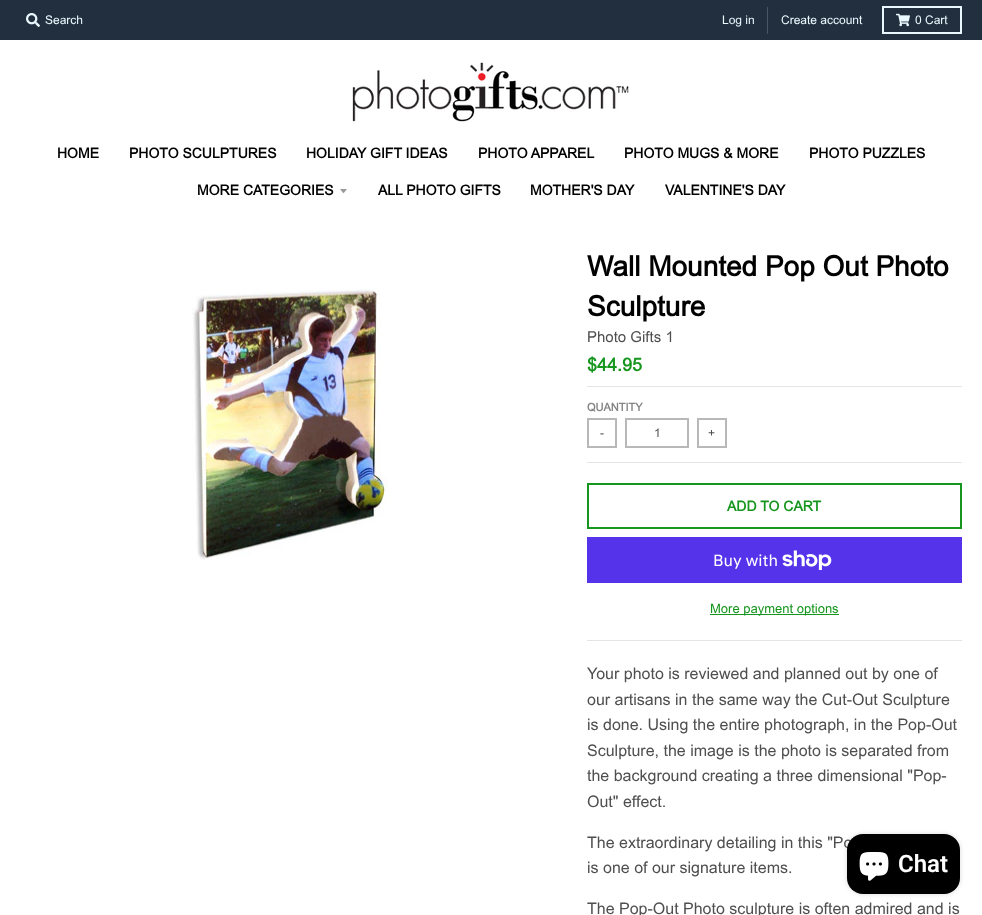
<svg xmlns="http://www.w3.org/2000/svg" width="982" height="915">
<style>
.a{font:500 12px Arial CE;fill:#e9f9ff}
.b{font:bold 14px Arial CE;fill:#000}
.c{font:bold 28px Arial;fill:#000}
.d{font:500 15px Arial CE;fill:#4f4f4f}
.e{font:bold 18px Arial CE;fill:#16961e}
.f{font:bold 11px Arial CE;fill:#838383}
.g{font:500 12px Arial CE;fill:#4f4f4f}
.h{font:bold 14px Arial CE;fill:#16961e}
.i{font:16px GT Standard;fill:#fff}
.j{font:500 13px Arial CE;fill:#16961e}
.k{font:16px Arial;fill:#4f4f4f}
.l{font:600 24px Roboto;fill:#fff}
</style>
<rect width="100%" height="100%" fill="#fff"/>
<path fill="#222f3e" d="M0 0h982v40H0z"/>
<image href="1.png" x="26" y="13" width="14" height="14"/>
<path fill="#495764" d="M767 7h1v27H767z"/>
<path fill="none" stroke="#e9f9ff" stroke-width="2" d="M883 7h78v26H883z"/>
<image href="2.png" x="896" y="13" width="14" height="14"/>
<image href="3.png" x="352" y="62" width="277" height="60"/>
<path fill="#999" d="M340 189c4.5 5.5 2.5 5.5 7 0z"/>
<image href="4.png" x="192" y="289" width="196" height="271"/>
<path fill="#e5e5e5" d="M587 640h375v1H587z"/>
<path fill="#e5e5e5" d="M587 386h375v1H587z"/>
<path fill="#e5e5e5" d="M587 462h375v1H587z"/>
<path fill="none" stroke="#b8b8b8" stroke-width="2" d="M588 419h28v28H588z"/>
<path fill="none" stroke="#b8b8b8" stroke-width="2" d="M626 419h62v28H626z"/>
<path fill="none" stroke="#b8b8b8" stroke-width="2" d="M698 419h28v28H698z"/>
<path fill="none" stroke="#16961e" stroke-width="2" d="M588 484h373v44H588z"/>
<path fill="#5433eb" d="M587 537h375v46H587z"/>
<image href="5.png" x="782" y="550" width="50" height="20"/>
<path fill="#16961e" d="M710 614h129v1H710z"/>
<rect fill="#00000026" filter="blur(2.5px)" x="847" y="834" width="113" height="60" rx="16"/>
<text class="a" x="45" y="24">Search</text>
<text class="a" x="722" y="24">Log in</text>
<text class="a" x="781" y="24">Create account</text>
<text class="a" x="915" y="24">0 Cart</text>
<text class="b" x="57" y="158">HOME</text>
<text class="b" x="129" y="158">PHOTO SCULPTURES</text>
<text class="b" x="306" y="158">HOLIDAY GIFT IDEAS</text>
<text class="b" x="478" y="158">PHOTO APPAREL</text>
<text class="b" x="624" y="158">PHOTO MUGS &amp; MORE</text>
<text class="b" x="809" y="158">PHOTO PUZZLES</text>
<text class="b" x="197" y="195">MORE CATEGORIES</text>
<text class="b" x="378" y="195">ALL PHOTO GIFTS</text>
<text class="b" x="530" y="195">MOTHER'S DAY</text>
<text class="b" x="665" y="195">VALENTINE'S DAY</text>
<text class="c" x="587" y="276">Wall Mounted Pop Out Photo</text>
<text class="c" x="587" y="316">Sculpture</text>
<text class="d" x="587" y="342">Photo Gifts 1</text>
<text class="e" x="587" y="371">$44.95</text>
<text class="f" x="587" y="411">QUANTITY</text>
<text class="g" x="600" y="437">-</text>
<text class="g" x="654" y="437">1</text>
<text class="g" x="708" y="437">+</text>
<text class="h" x="727" y="511">ADD TO CART</text>
<text class="i" x="713" y="566">Buy with</text>
<text class="j" x="710" y="613">More payment options</text>
<text class="k" x="587" y="679">Your photo is reviewed and planned out by one of</text>
<text class="k" x="587" y="705">our artisans in the same way the Cut-Out Sculpture</text>
<text class="k" x="587" y="730">is done. Using the entire photograph, in the Pop-Out</text>
<text class="k" x="587" y="756">Sculpture, the image is the photo is separated from</text>
<text class="k" x="587" y="781">the background creating a three dimensional "Pop-</text>
<text class="k" x="587" y="807">Out" effect.</text>
<text class="k" x="587" y="848">The extraordinary detailing in this "Po</text>
<text class="k" x="587" y="873">is one of our signature items.</text>
<text class="k" x="587" y="914">The Pop-Out Photo sculpture is often admired and is</text>
<rect fill="#000" x="847" y="834" width="113" height="60" rx="16"/>
<image href="6.png" x="859" y="852" width="30" height="29"/>
<text class="l" x="898" y="872">Chat</text>
</svg>
